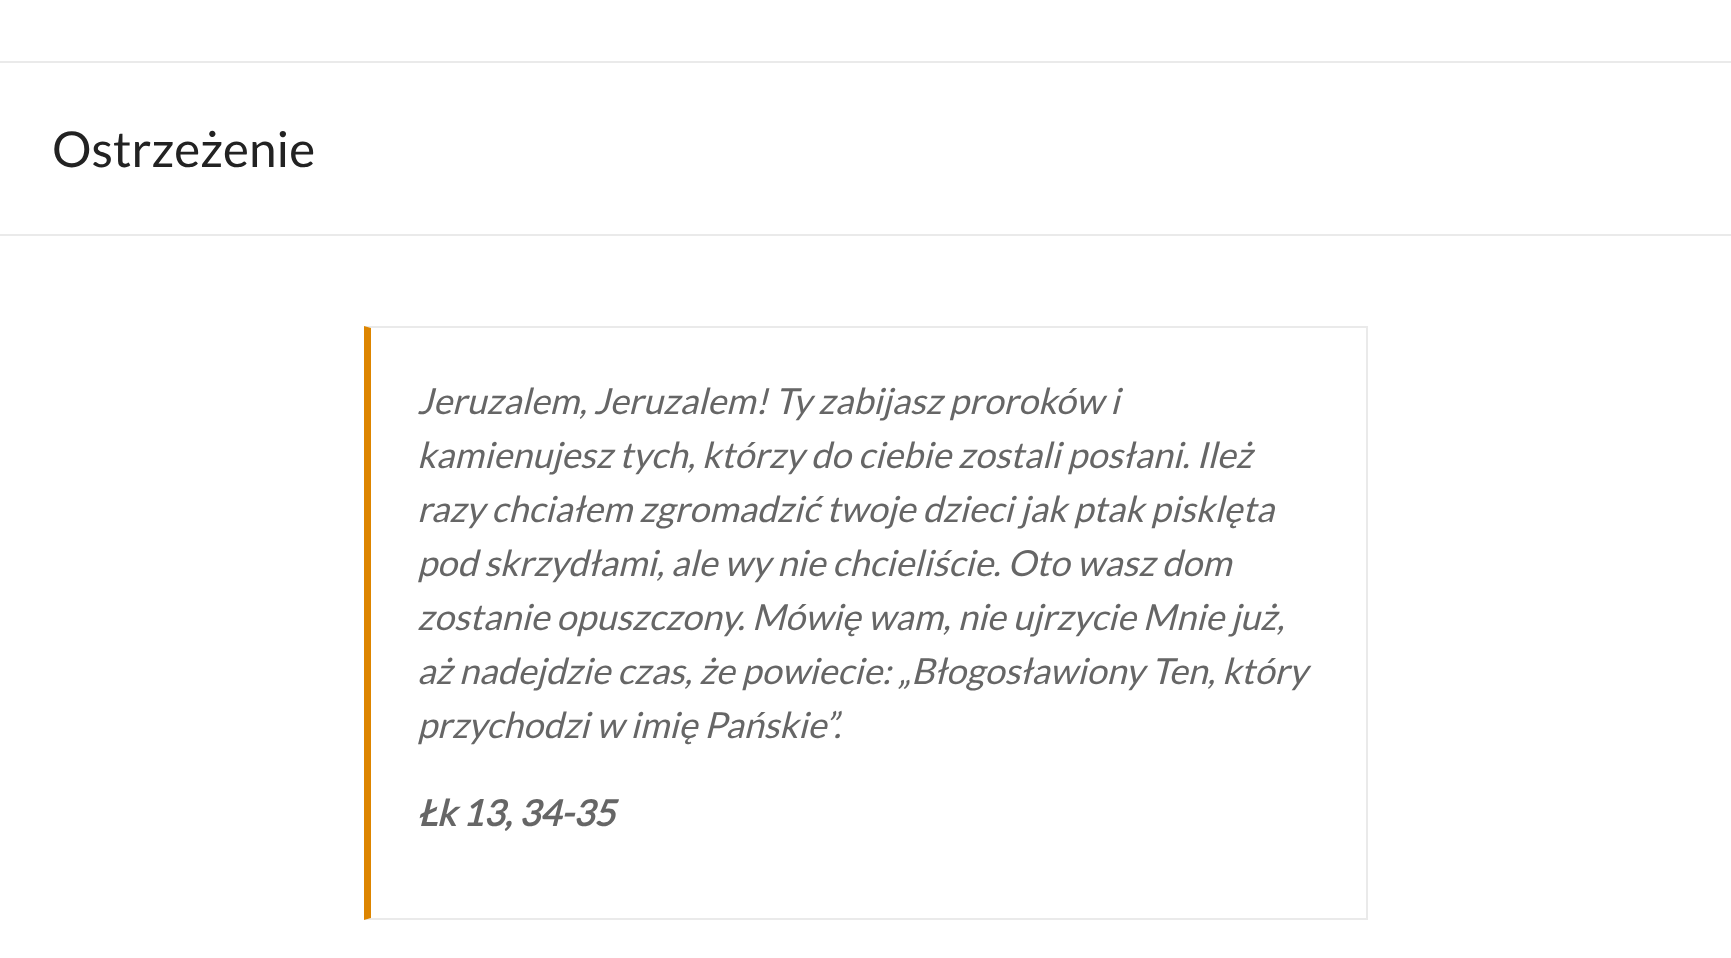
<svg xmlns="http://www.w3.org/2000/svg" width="1731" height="958">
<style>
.a{font:49.5px Lato;fill:#222}
.b{font:italic 36px Lato;fill:#666}
.c{font:italic bold 36px Lato;fill:#666}
</style>
<rect width="100%" height="100%" fill="#fff"/>
<path fill="#eaeaea" d="M0 61h1731v2H0z"/>
<path fill="#eaeaea" d="M0 234h1731v2H0z"/>
<path fill="#eaeaea" d="M364 326h1004l-2 2h-995z"/>
<path fill="#eaeaea" d="M1366 326h2v594H1366z"/>
<path fill="#eaeaea" d="M1368 920h-1004l7-2h995z"/>
<path fill="#dd8500" d="M364 920v-594l7 2v590z"/>
<text class="a" x="52" y="167">Ostrzeżenie</text>
<text class="b" x="417" y="414">Jeruzalem, Jeruzalem! Ty zabijasz proroków i</text>
<text class="b" x="417" y="468">kamienujesz tych, którzy do ciebie zostali posłani. Ileż</text>
<text class="b" x="417" y="522">razy chciałem zgromadzić twoje dzieci jak ptak pisklęta</text>
<text class="b" x="417" y="576">pod skrzydłami, ale wy nie chcieliście. Oto wasz dom</text>
<text class="b" x="417" y="630">zostanie opuszczony. Mówię wam, nie ujrzycie Mnie już,</text>
<text class="b" x="417" y="684">aż nadejdzie czas, że powiecie: „Błogosławiony Ten, który</text>
<text class="b" x="417" y="738">przychodzi w imię Pańskie”.</text>
<text class="c" x="417" y="826">Łk 13, 34-35</text>
</svg>
